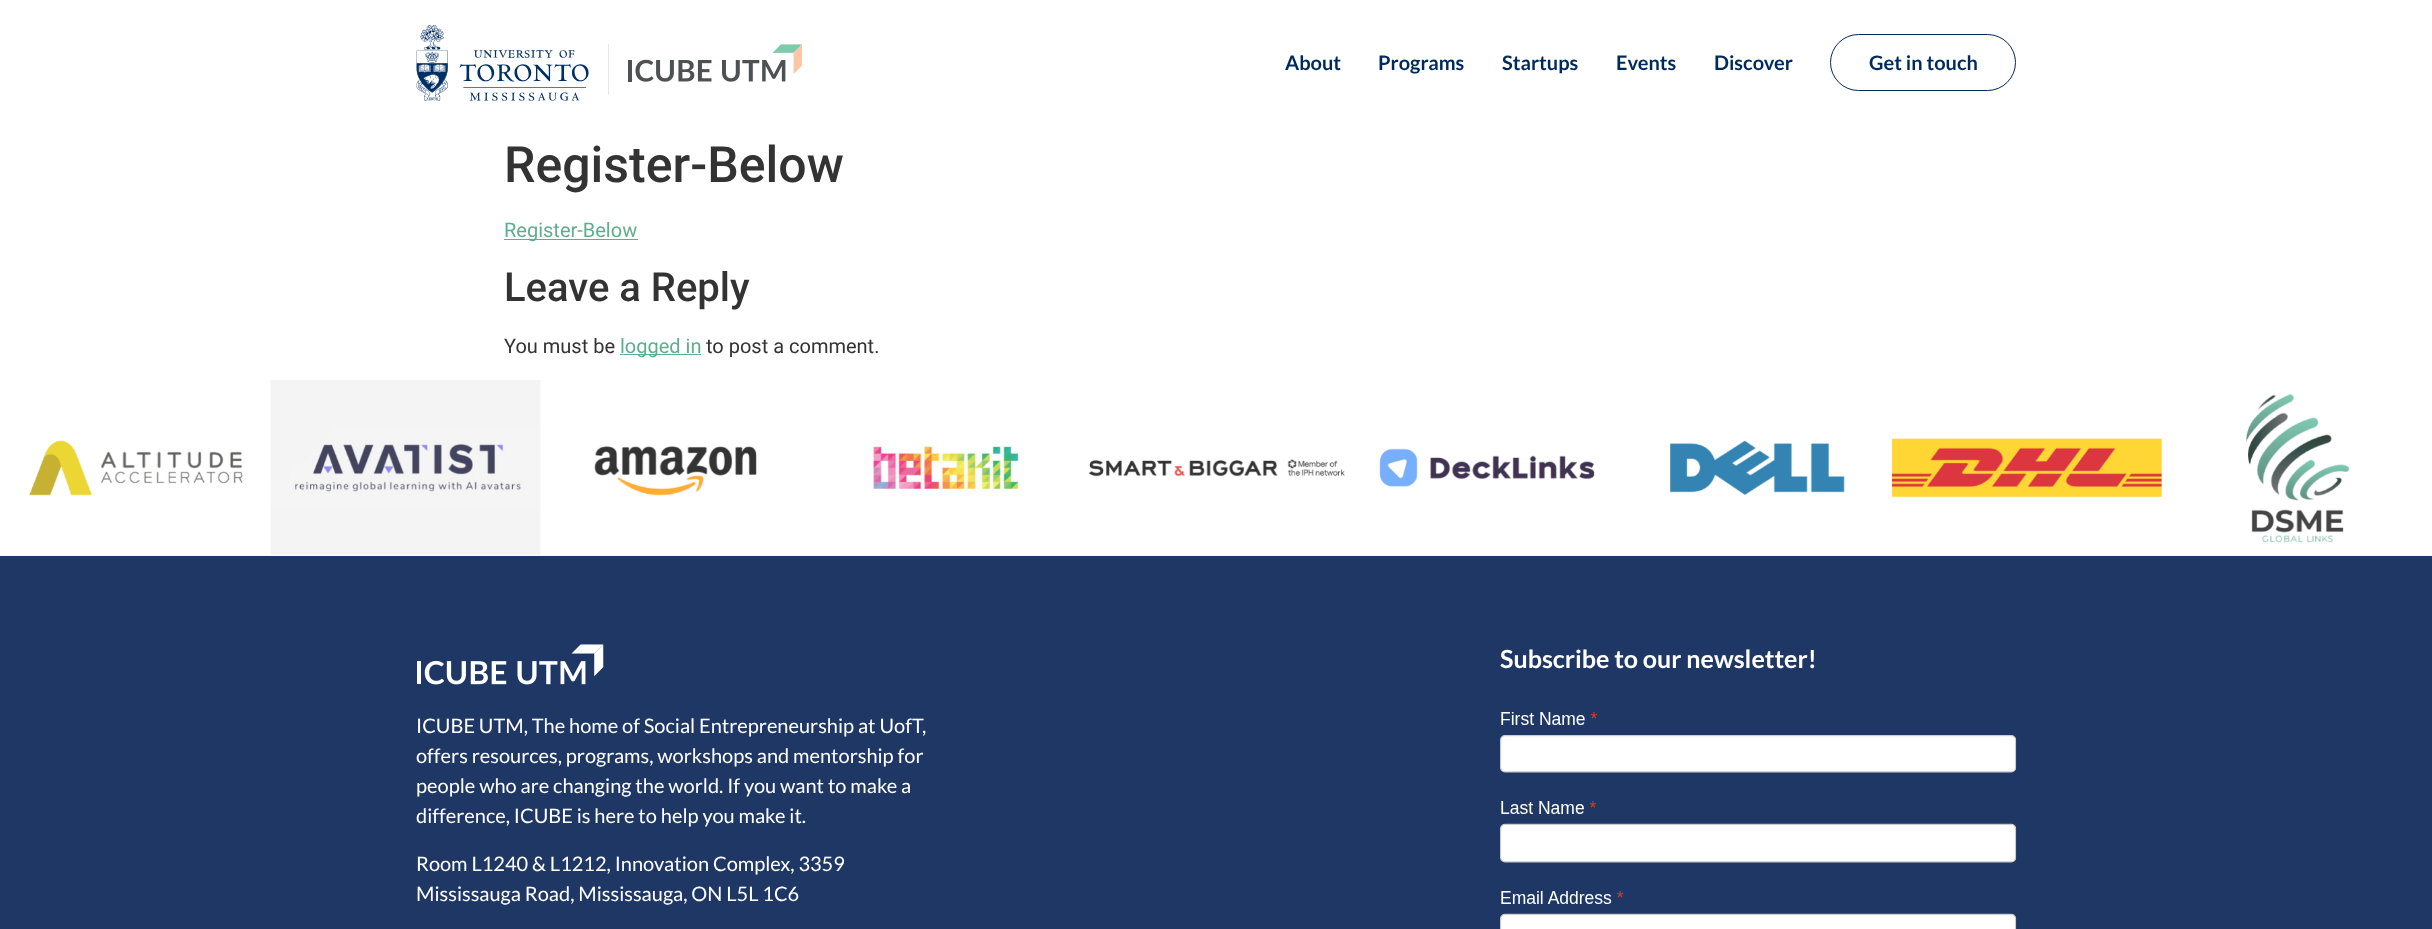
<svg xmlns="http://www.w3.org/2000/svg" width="2432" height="929">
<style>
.a{font:bold 20px Lato;fill:#002a5c}
.b{font:500 50px Roboto;fill:#333}
.c{font:20px Roboto;fill:#5eae90}
.d{font:500 40px Roboto;fill:#333}
.e{font:20px Roboto;fill:#333}
.f{font:bold 25px Lato;fill:#fff}
.g{font:20px Lato;fill:#fff}
</style>
<rect width="100%" height="100%" fill="#fff"/>
<image href="1.png" x="416" y="25" width="173" height="76"/>
<path fill="#e5e5e5" d="M608 44h1v51H608z"/>
<image href="2.png" x="628" y="44" width="174" height="38"/>
<rect fill="none" stroke="#002a5c" x="1830.5" y="34.5" width="185" height="56" rx="28"/>
<path fill="#5eae90" d="M504 239h134v1H504z"/>
<path fill="#5eae90" d="M620 354h81v1H620z"/>
<image href="3.png" x="29" y="440" width="214" height="56"/>
<image href="4.png" x="270" y="380" width="271" height="175"/>
<image href="5.png" x="594" y="446" width="163" height="50"/>
<image href="6.png" x="873" y="446" width="146" height="43"/>
<image href="7.png" x="1088" y="459" width="257" height="18"/>
<image href="8.png" x="1379" y="448" width="216" height="39"/>
<image href="9.png" x="1670" y="440" width="175" height="55"/>
<image href="10.png" x="1892" y="438" width="270" height="60"/>
<image href="11.png" x="2246" y="393" width="104" height="150"/>
<path fill="#1e3765" d="M0 556h2432v373H0z"/>
<image href="12.png" x="1500" y="712" width="517" height="217"/>
<image href="13.png" x="417" y="644" width="187" height="41"/>
<text class="a" x="1285" y="70">About</text>
<text class="a" x="1378" y="70">Programs</text>
<text class="a" x="1502" y="70">Startups</text>
<text class="a" x="1616" y="70">Events</text>
<text class="a" x="1714" y="70">Discover</text>
<text class="a" x="1869" y="70">Get in touch</text>
<text class="b" x="504" y="182">Register-Below</text>
<text class="c" x="504" y="237">Register-Below</text>
<text class="d" x="504" y="301">Leave a Reply</text>
<text class="e" x="504" y="353">You must be</text>
<text class="c" x="620" y="353">logged in</text>
<text class="e" x="706" y="353">to post a comment.</text>
<text class="f" x="1500" y="668">Subscribe to our newsletter!</text>
<text class="g" x="416" y="733">ICUBE UTM, The home of Social Entrepreneurship at UofT,</text>
<text class="g" x="416" y="763">offers resources, programs, workshops and mentorship for</text>
<text class="g" x="416" y="793">people who are changing the world. If you want to make a</text>
<text class="g" x="416" y="823">difference, ICUBE is here to help you make it.</text>
<text class="g" x="416" y="871">Room L1240 &amp; L1212, Innovation Complex, 3359</text>
<text class="g" x="416" y="901">Mississauga Road, Mississauga, ON L5L 1C6</text>
</svg>
